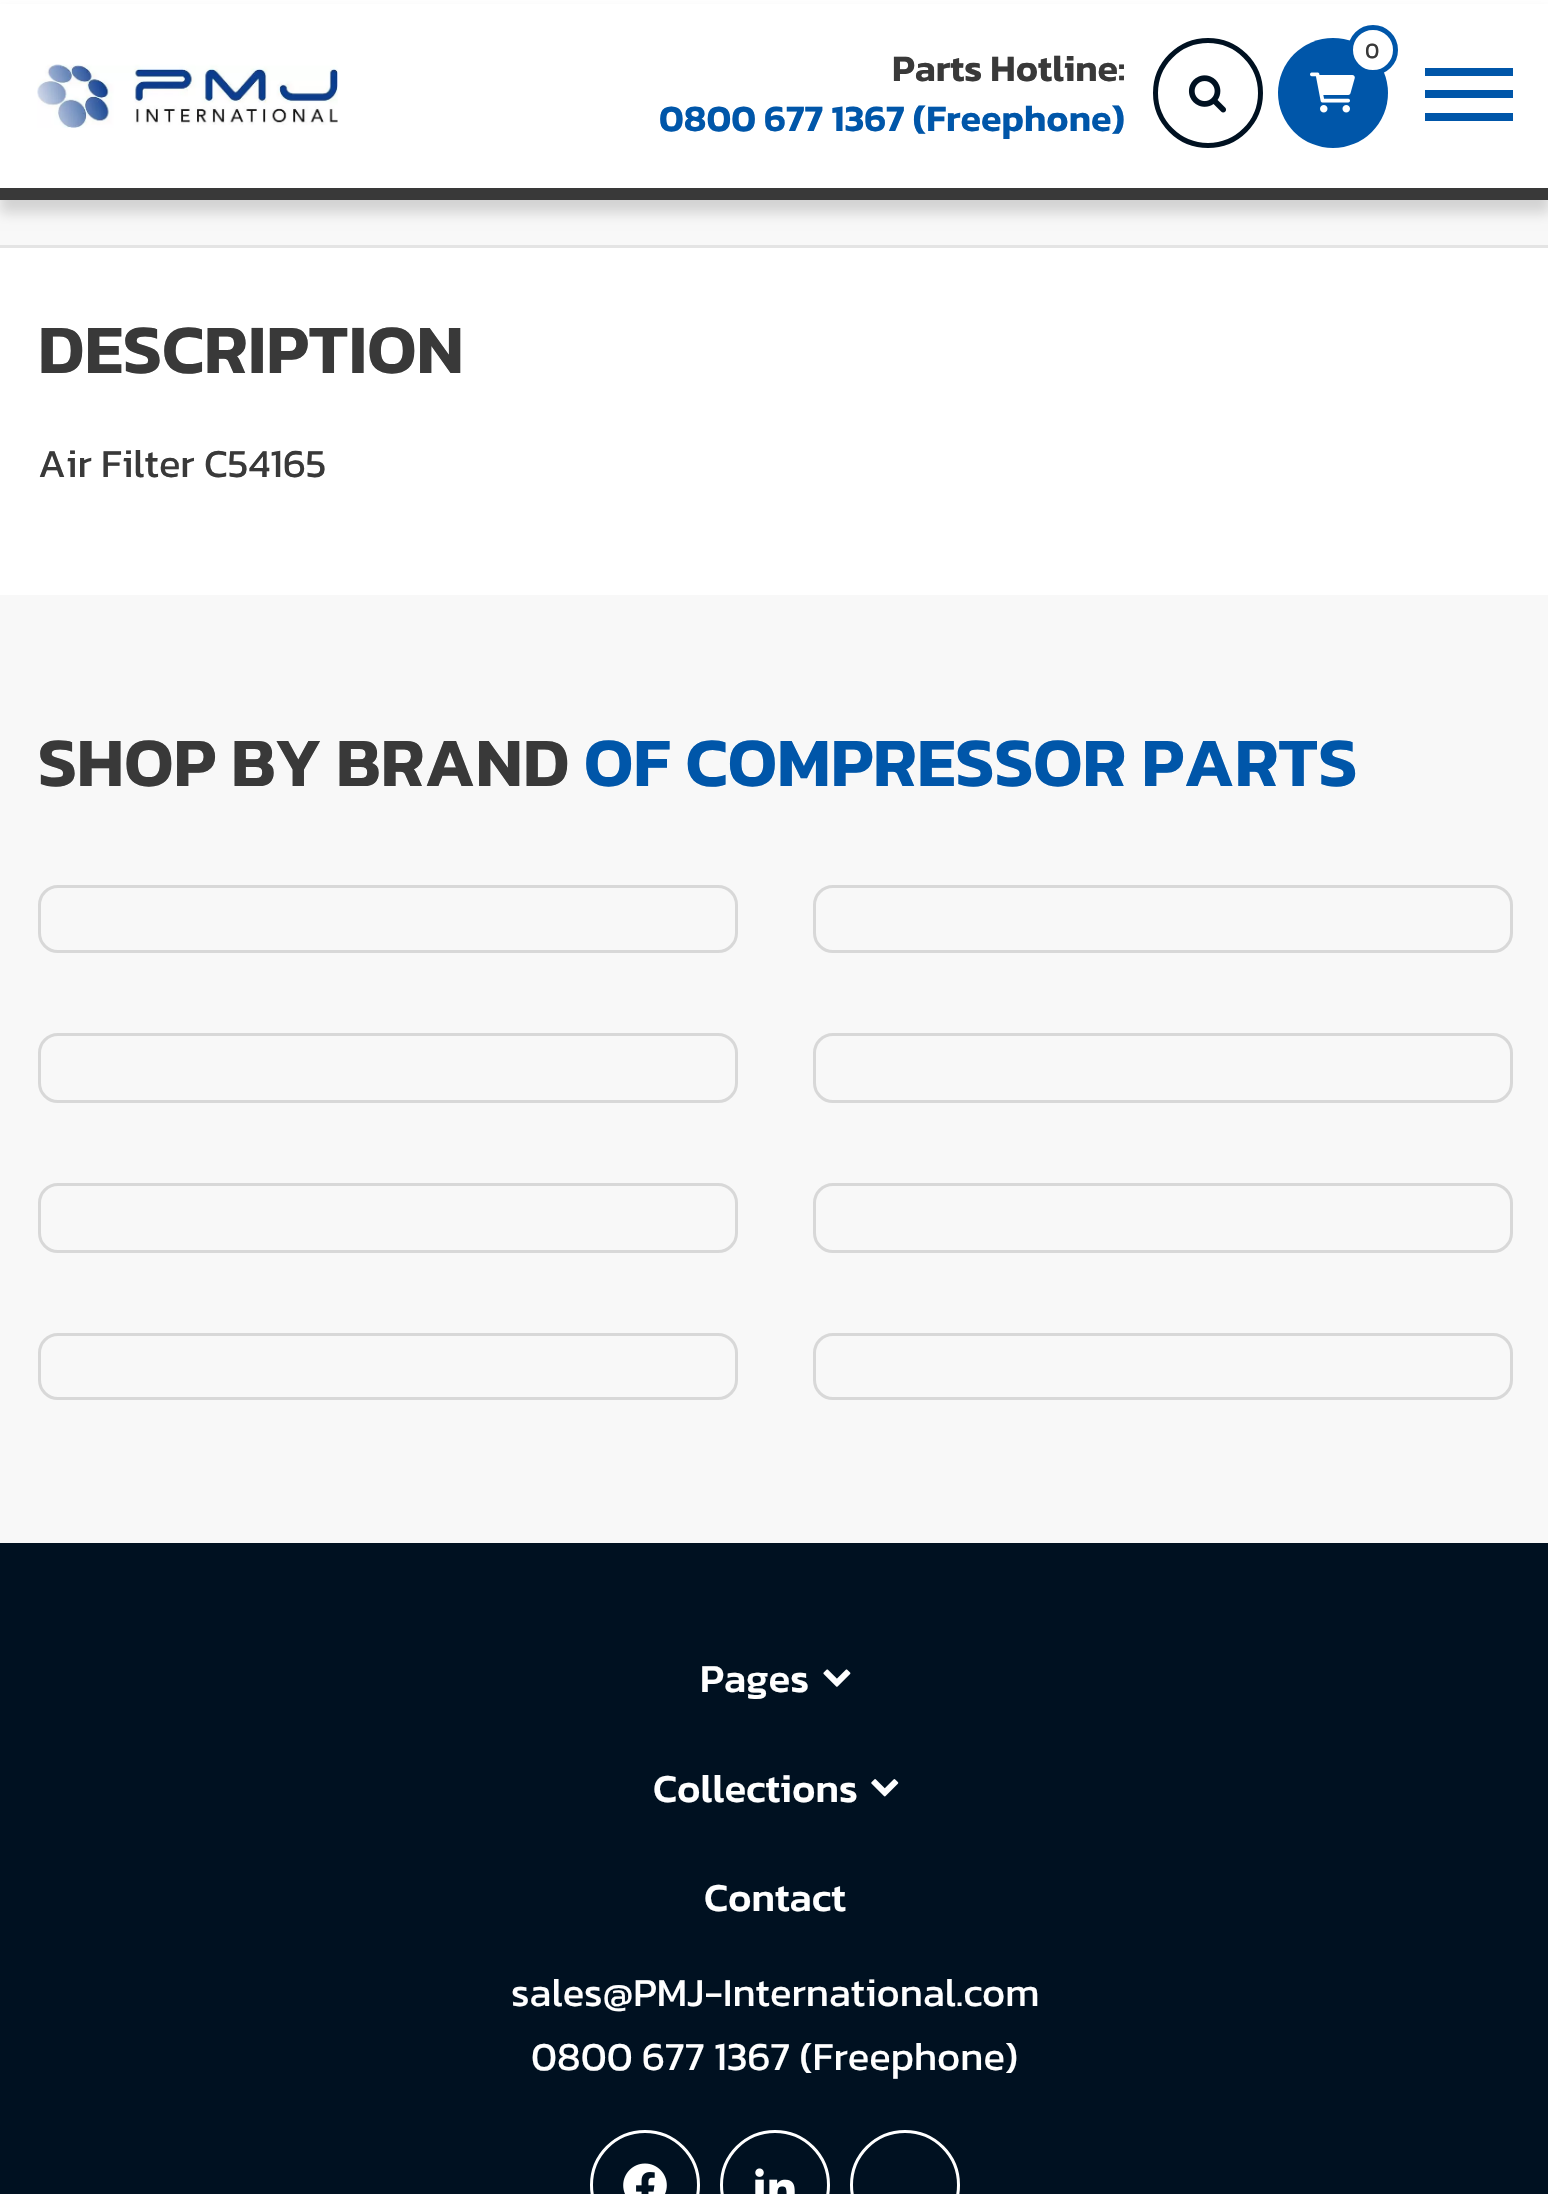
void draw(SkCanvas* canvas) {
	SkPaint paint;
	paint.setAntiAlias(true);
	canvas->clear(0xffffffff);
	paint.setColor(0xfff8f8f8);
	canvas->drawRect(SkRect::MakeXYWH(0, 200, 1548, 45), paint);
	paint.setColor(0x26000000);
	paint.setMaskFilter(SkMaskFilter::MakeBlur(kNormal_SkBlurStyle, 6));
	canvas->drawRect(SkRect::MakeXYWH(0, 13, 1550, 200), paint);
	paint.setMaskFilter(nullptr);
	paint.setColor(0xff393939);
	canvas->drawRect(SkRect::MakeXYWH(0, 188, 1548, 12), paint);
	paint.setColor(0xffffffff);
	canvas->drawRect(SkRect::MakeXYWH(0, 4, 1548, 184), paint);
	canvas->drawImageRect(SkImages::DeferredFromEncodedData(SkData::MakeFromFileName("img1.png")), SkRect::MakeXYWH(37, 64, 301, 64), SkSamplingOptions());
	paint.setStroke(true);
	paint.setStrokeWidth(5);
	paint.setColor(0xff001121);
	canvas->drawCircle(1208, 93, 52.5, paint);
	canvas->drawImageRect(SkImages::DeferredFromEncodedData(SkData::MakeFromFileName("img2.png")), SkRect::MakeXYWH(1188, 75, 38, 38), SkSamplingOptions());
	paint.setStroke(false);
	paint.setColor(0xff0056a9);
	canvas->drawCircle(1333, 93, 55, paint);
	canvas->drawImageRect(SkImages::DeferredFromEncodedData(SkData::MakeFromFileName("img3.png")), SkRect::MakeXYWH(1310, 72, 45, 41), SkSamplingOptions());
	paint.setColor(0xffffffff);
	canvas->drawCircle(1373, 50, 22.5, paint);
	paint.setStroke(true);
	paint.setColor(0xff0056a9);
	canvas->drawCircle(1373, 50, 22.5, paint);
	SkFont f1(fontMgr->matchFamilyStyle("Kanit", SkFontStyle::Normal()), 22);
	f1.setSubpixel(true);
	paint.setStroke(false);
	paint.setColor(0xff393939);
	canvas->drawString("0", 1365, 58, f1, paint);
	SkFont f2(fontMgr->matchFamilyStyle("Kanit", SkFontStyle(600, SkFontStyle::kNormal_Width, SkFontStyle::kUpright_Slant)), 37.5);
	f2.setSubpixel(true);
	canvas->drawString("Parts Hotline:", 892, 81, f2, paint);
	paint.setColor(0xff0056a9);
	canvas->drawString("0800 677 1367 (Freephone)", 659, 131, f2, paint);
	canvas->drawRect(SkRect::MakeXYWH(1425, 68, 88, 8), paint);
	canvas->drawRect(SkRect::MakeXYWH(1425, 90, 88, 8), paint);
	canvas->drawRect(SkRect::MakeXYWH(1425, 113, 88, 8), paint);
	paint.setColor(0xffe4e4e4);
	canvas->drawRect(SkRect::MakeXYWH(0, 245, 1548, 3), paint);
	SkFont f3(fontMgr->matchFamilyStyle("Kanit", SkFontStyle(600, SkFontStyle::kNormal_Width, SkFontStyle::kUpright_Slant)), 70);
	f3.setSubpixel(true);
	paint.setColor(0xff393939);
	canvas->drawString("DESCRIPTION", 38, 373, f3, paint);
	SkFont f4(fontMgr->matchFamilyStyle("Kanit", SkFontStyle::Normal()), 40);
	f4.setSubpixel(true);
	canvas->drawString("Air Filter C54165", 38, 477, f4, paint);
	paint.setColor(0xfff8f8f8);
	canvas->drawRect(SkRect::MakeXYWH(0, 595, 1548, 948), paint);
	paint.setColor(0xff393939);
	canvas->drawString("SHOP BY BRAND", 38, 786, f3, paint);
	paint.setColor(0xff0056a9);
	canvas->drawString("OF COMPRESSOR PARTS", 584, 786, f3, paint);
	paint.setStroke(true);
	paint.setStrokeWidth(3);
	paint.setColor(0xffd8d8d8);
	canvas->drawRoundRect(SkRect::MakeXYWH(39.5, 886.5, 697, 65), 18.5, 18.5, paint);
	canvas->drawRoundRect(SkRect::MakeXYWH(814.5, 886.5, 697, 65), 18.5, 18.5, paint);
	canvas->drawRoundRect(SkRect::MakeXYWH(39.5, 1034.5, 697, 67), 18.5, 18.5, paint);
	canvas->drawRoundRect(SkRect::MakeXYWH(814.5, 1034.5, 697, 67), 18.5, 18.5, paint);
	canvas->drawRoundRect(SkRect::MakeXYWH(39.5, 1184.5, 697, 67), 18.5, 18.5, paint);
	canvas->drawRoundRect(SkRect::MakeXYWH(814.5, 1184.5, 697, 67), 18.5, 18.5, paint);
	canvas->drawRoundRect(SkRect::MakeXYWH(39.5, 1334.5, 697, 64), 18.5, 18.5, paint);
	canvas->drawRoundRect(SkRect::MakeXYWH(814.5, 1334.5, 697, 64), 18.5, 18.5, paint);
	paint.setStroke(false);
	paint.setColor(0xff001121);
	canvas->drawRect(SkRect::MakeXYWH(0, 1543, 1548, 651), paint);
	SkFont f5(fontMgr->matchFamilyStyle("Kanit", SkFontStyle(500, SkFontStyle::kNormal_Width, SkFontStyle::kUpright_Slant)), 40);
	f5.setSubpixel(true);
	paint.setColor(0xffffffff);
	canvas->drawString("Pages", 700, 1692, f5, paint);
	canvas->drawImageRect(SkImages::DeferredFromEncodedData(SkData::MakeFromFileName("img4.png")), SkRect::MakeXYWH(823, 1669, 28, 18), SkSamplingOptions());
	canvas->drawString("Collections", 653, 1802, f5, paint);
	canvas->drawImageRect(SkImages::DeferredFromEncodedData(SkData::MakeFromFileName("img5.png")), SkRect::MakeXYWH(871, 1779, 28, 18), SkSamplingOptions());
	canvas->drawString("Contact", 704, 1911, f5, paint);
	canvas->drawString("sales@PMJ-International.com", 511, 2006, f4, paint);
	canvas->drawString("0800 677 1367 (Freephone)", 531, 2070, f4, paint);
	paint.setStroke(true);
	canvas->drawCircle(645, 2185, 53.5, paint);
	canvas->drawImageRect(SkImages::DeferredFromEncodedData(SkData::MakeFromFileName("img6.png")), SkRect::MakeXYWH(623, 2163, 44, 31), SkSamplingOptions());
	canvas->drawCircle(775, 2185, 53.5, paint);
	canvas->drawImageRect(SkImages::DeferredFromEncodedData(SkData::MakeFromFileName("img7.png")), SkRect::MakeXYWH(755, 2168, 40, 26), SkSamplingOptions());
	canvas->drawCircle(905, 2185, 53.5, paint);
}
